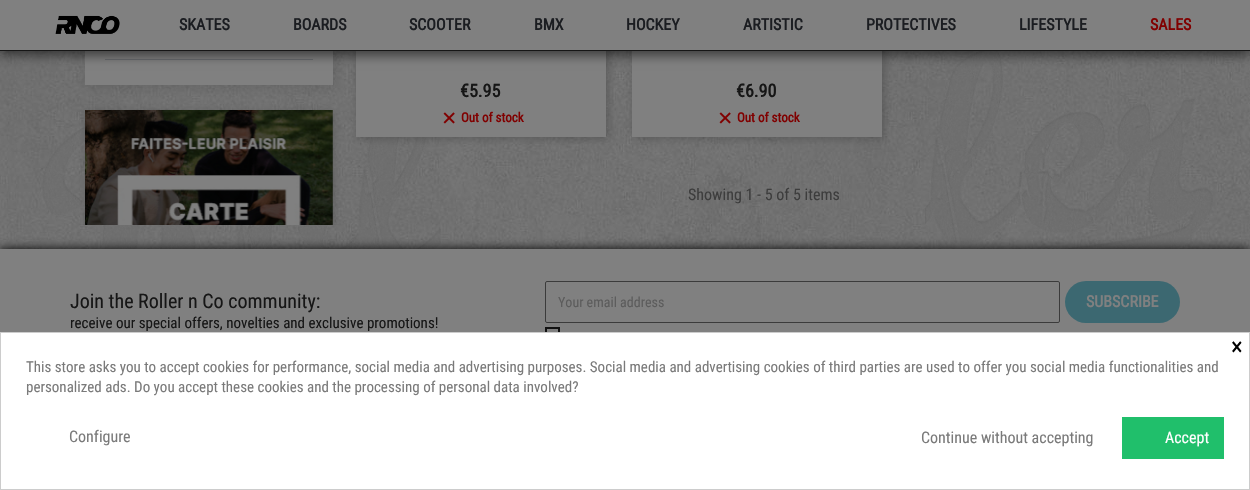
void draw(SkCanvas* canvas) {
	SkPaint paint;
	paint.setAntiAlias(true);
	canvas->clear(0xffffffff);
	canvas->drawImageRect(SkImages::DeferredFromEncodedData(SkData::MakeFromFileName("img1.png")), SkRect::MakeXYWH(0, 51, 1250, 198), SkSamplingOptions());
	canvas->drawImageRect(SkImages::DeferredFromEncodedData(SkData::MakeFromFileName("img3.png")), SkRect::MakeXYWH(42, 51, 1171, 198), SkSamplingOptions());
	paint.setColor(0x1a000000);
	paint.setMaskFilter(SkMaskFilter::MakeBlur(kNormal_SkBlurStyle, 5.5));
	canvas->drawRect(SkRect::MakeXYWH(87, -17, 248, 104), paint);
	paint.setMaskFilter(nullptr);
	paint.setColor(0xff808080);
	canvas->drawRect(SkRect::MakeXYWH(85, 51, 248, 34), paint);
	paint.setColor(0xff686b6e);
	canvas->drawRect(SkRect::MakeXYWH(105, 59, 208, 1), paint);
	paint.setColor(0x33000000);
	paint.setMaskFilter(SkMaskFilter::MakeBlur(kNormal_SkBlurStyle, 4));
	canvas->drawRect(SkRect::MakeXYWH(358, -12, 250, 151), paint);
	paint.setMaskFilter(nullptr);
	paint.setColor(0xff808080);
	canvas->drawRect(SkRect::MakeXYWH(356, 51, 250, 86), paint);
	paint.setColor(0x33000000);
	paint.setMaskFilter(SkMaskFilter::MakeBlur(kNormal_SkBlurStyle, 4));
	canvas->drawRect(SkRect::MakeXYWH(634, -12, 250, 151), paint);
	paint.setMaskFilter(nullptr);
	paint.setColor(0xff808080);
	canvas->drawRect(SkRect::MakeXYWH(632, 51, 250, 86), paint);
	paint.setColor(0x80000000);
	paint.setMaskFilter(SkMaskFilter::MakeBlur(kNormal_SkBlurStyle, 5));
	canvas->drawRect(SkRect::MakeXYWH(0, 5, 1250, 51), paint);
	paint.setMaskFilter(nullptr);
	paint.setColor(0xff808080);
	canvas->drawRect(SkRect::MakeXYWH(0, 0, 1250, 50), paint);
	paint.setColor(0xff161616);
	canvas->drawRect(SkRect::MakeXYWH(0, 50, 1250, 1), paint);
	canvas->drawImageRect(SkImages::DeferredFromEncodedData(SkData::MakeFromFileName("img2.png")), SkRect::MakeXYWH(55, 15, 65, 19), SkSamplingOptions());
	SkFont f1(fontMgr->matchFamilyStyle("Roboto Condensed", SkFontStyle::Bold()), 16);
	f1.setSubpixel(true);
	paint.setColor(0xff1b1d21);
	canvas->drawString("SKATES", 179, 30, f1, paint);
	canvas->drawString("BOARDS", 293, 30, f1, paint);
	canvas->drawString("SCOOTER", 409, 30, f1, paint);
	canvas->drawString("BMX", 534, 30, f1, paint);
	canvas->drawString("HOCKEY", 626, 30, f1, paint);
	canvas->drawString("ARTISTIC", 743, 30, f1, paint);
	canvas->drawString("PROTECTIVES", 866, 30, f1, paint);
	canvas->drawString("LIFESTYLE", 1019, 30, f1, paint);
	paint.setColor(0xff800000);
	canvas->drawString("SALES", 1150, 30, f1, paint);
	paint.setColor(0xff000000);
	paint.setMaskFilter(SkMaskFilter::MakeBlur(kNormal_SkBlurStyle, 5));
	canvas->drawRect(SkRect::MakeXYWH(0, 249, 1250, 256), paint);
	paint.setMaskFilter(nullptr);
	paint.setColor(0xff808080);
	canvas->drawRect(SkRect::MakeXYWH(0, 249, 1250, 83), paint);
	canvas->save();
	canvas->clipRect(SkRect::MakeXYWH(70, 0, 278, 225));
	paint.setColor(0x26000000);
	paint.setMaskFilter(SkMaskFilter::MakeBlur(kNormal_SkBlurStyle, 3.5));
	canvas->drawRect(SkRect::MakeXYWH(86, 111, 248, 228), paint);
	paint.setMaskFilter(nullptr);
	canvas->restore();
	canvas->drawImageRect(SkImages::DeferredFromEncodedData(SkData::MakeFromFileName("img4.png")), SkRect::MakeXYWH(85, 110, 248, 115), SkSamplingOptions());
	SkFont f2(fontMgr->matchFamilyStyle("Roboto Condensed", SkFontStyle::Bold()), 18);
	f2.setSubpixel(true);
	paint.setColor(0xff161616);
	canvas->drawString("€5.95", 460, 97, f2, paint);
	canvas->drawImageRect(SkImages::DeferredFromEncodedData(SkData::MakeFromFileName("img5.png")), SkRect::MakeXYWH(443, 112, 12, 12), SkSamplingOptions());
	SkFont f3(fontMgr->matchFamilyStyle("Roboto Condensed", SkFontStyle::Bold()), 13);
	f3.setSubpixel(true);
	paint.setColor(0xff800000);
	canvas->drawString("Out of stock", 461, 122, f3, paint);
	paint.setColor(0xff161616);
	canvas->drawString("€6.90", 736, 97, f2, paint);
	canvas->drawImageRect(SkImages::DeferredFromEncodedData(SkData::MakeFromFileName("img5.png")), SkRect::MakeXYWH(719, 112, 12, 12), SkSamplingOptions());
	paint.setColor(0xff800000);
	canvas->drawString("Out of stock", 737, 122, f3, paint);
	SkFont f4(fontMgr->matchFamilyStyle("Roboto Condensed", SkFontStyle::Normal()), 16);
	f4.setSubpixel(true);
	paint.setColor(0xff3d3d3d);
	canvas->drawString("Showing 1 - 5 of 5 items", 688, 200, f4, paint);
	SkFont f5(fontMgr->matchFamilyStyle("Roboto Condensed", SkFontStyle::Normal()), 20);
	f5.setSubpixel(true);
	paint.setColor(0xff161616);
	canvas->drawString("Join the Roller n Co community:", 70, 308, f5, paint);
	SkFont f6(fontMgr->matchFamilyStyle("Roboto Condensed", SkFontStyle::Normal()), 15);
	f6.setSubpixel(true);
	canvas->drawString("receive our special offers, novelties and exclusive promotions!", 70, 328, f6, paint);
	paint.setStroke(true);
	paint.setStrokeWidth(1);
	paint.setColor(0xff3b3b3b);
	canvas->drawRoundRect(SkRect::MakeXYWH(545.5, 281.5, 514, 41), 1.5, 1.5, paint);
	SkFont f7(fontMgr->matchFamilyStyle("Roboto Condensed", SkFontStyle::Normal()), 14);
	f7.setSubpixel(true);
	paint.setStroke(false);
	paint.setColor(0xff5c5c5c);
	canvas->drawString("Your email address", 558, 307, f7, paint);
	paint.setColor(0xff3c6871);
	canvas->drawRoundRect(SkRect::MakeXYWH(1065, 281, 115, 42), 21, 21, paint);
	paint.setColor(0xff808080);
	canvas->drawString("SUBSCRIBE", 1086, 307, f1, paint);
	paint.setStroke(true);
	paint.setStrokeWidth(2);
	paint.setColor(0xff121212);
	canvas->drawRect(SkRect::MakeXYWH(546, 328, 13, 13), paint);
	paint.setStroke(false);
	paint.setColor(0xffffffff);
	canvas->drawRect(SkRect::MakeXYWH(0.5, 332.5, 1249, 157), paint);
	paint.setStroke(true);
	paint.setStrokeWidth(1);
	paint.setColor(0xffcccccc);
	canvas->drawRect(SkRect::MakeXYWH(0.5, 332.5, 1249, 157), paint);
	SkFont f8(fontMgr->matchFamilyStyle("Roboto Condensed", SkFontStyle::Normal()), 25);
	f8.setSubpixel(true);
	paint.setStroke(false);
	paint.setColor(0xff000000);
	canvas->drawString("×", 1231, 355, f8, paint);
	paint.setColor(0xff7a7a7a);
	canvas->drawString("This store asks you to accept cookies for performance, social media and advertising purposes. Social media and advertising cookies of third parties are used to offer you social media functionalities and", 26, 372, f6, paint);
	canvas->drawString("personalized ads. Do you accept these cookies and the processing of personal data involved?", 26, 392, f6, paint);
	canvas->drawString("Configure", 69, 442, f4, paint);
	canvas->drawString("Continue without accepting", 921, 443, f4, paint);
	paint.setColor(0xff20bf6b);
	canvas->drawRect(SkRect::MakeXYWH(1122, 417, 102, 42), paint);
	paint.setColor(0xffffffff);
	canvas->drawString("Accept", 1165, 443, f4, paint);
}
